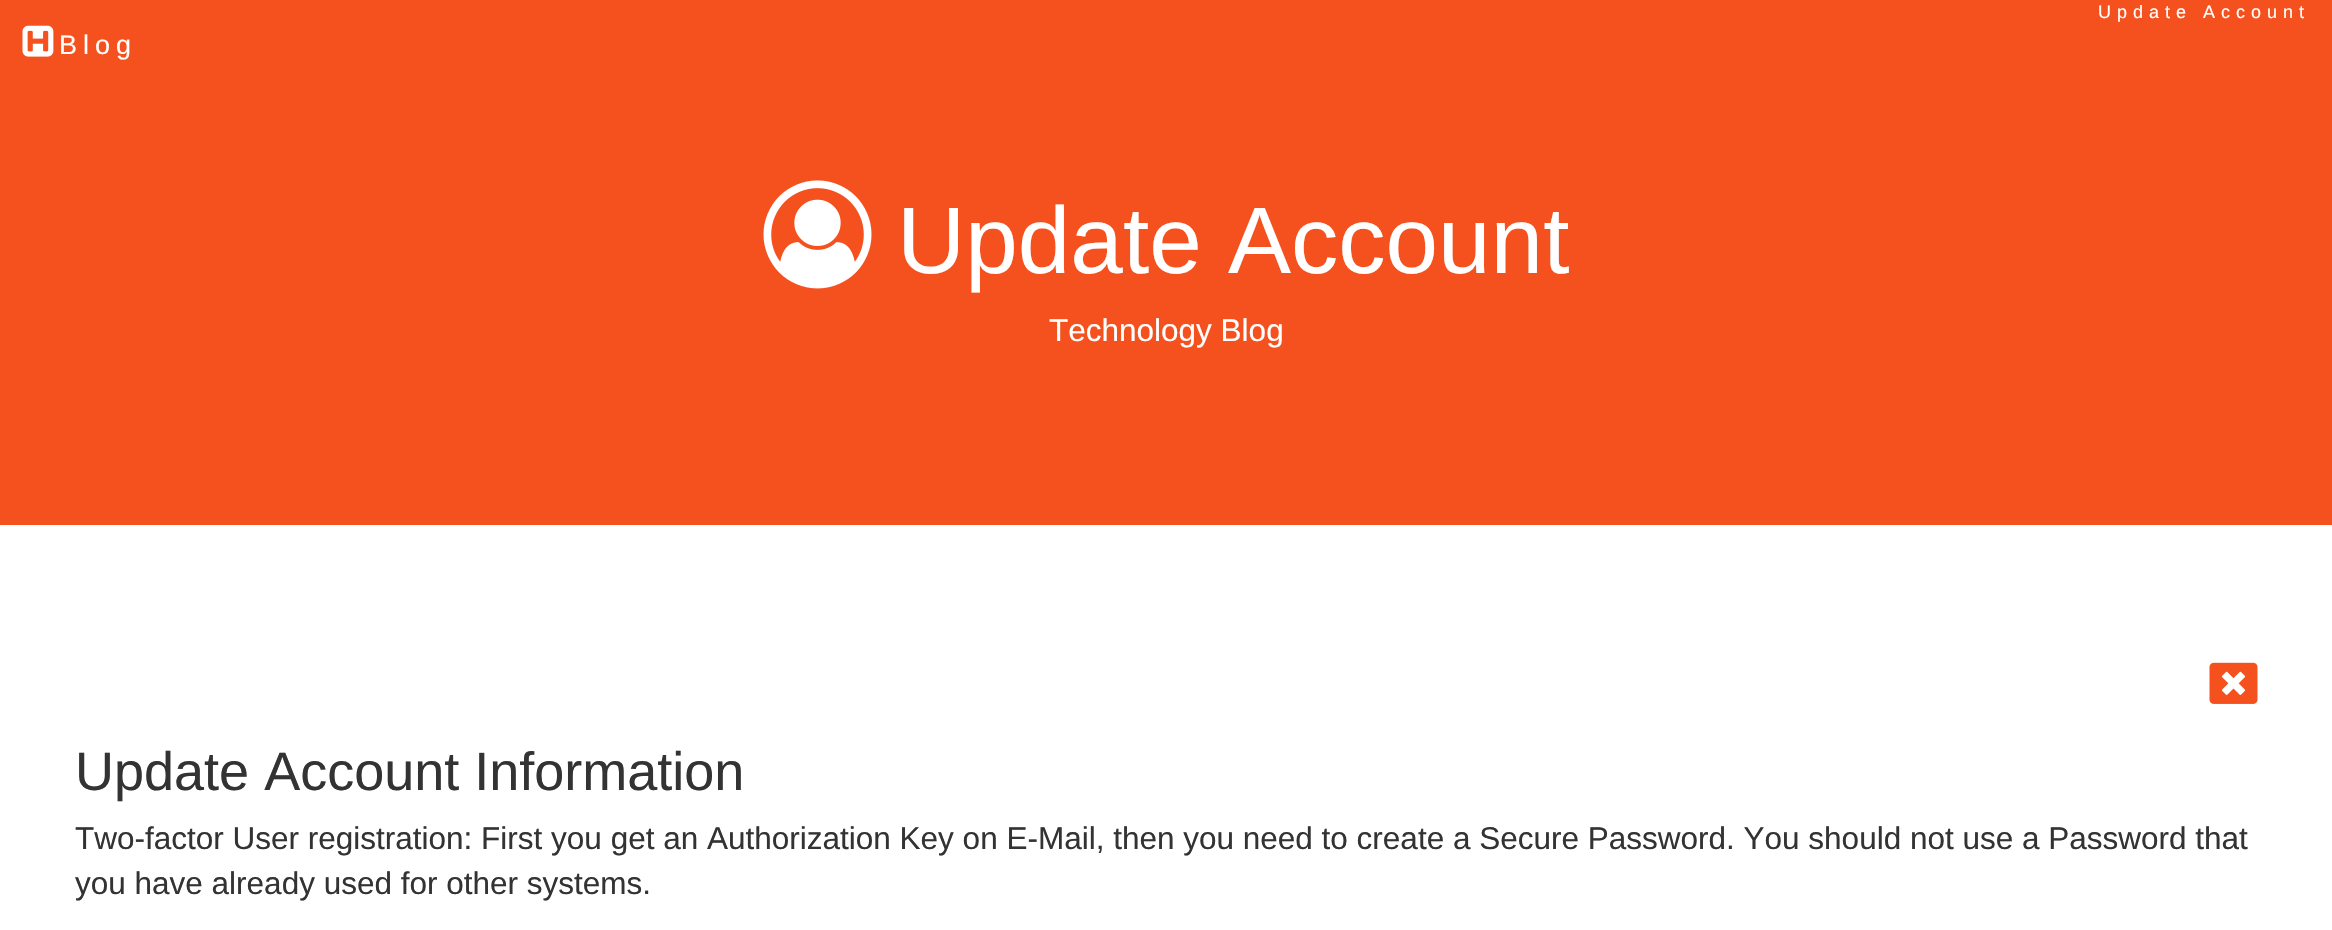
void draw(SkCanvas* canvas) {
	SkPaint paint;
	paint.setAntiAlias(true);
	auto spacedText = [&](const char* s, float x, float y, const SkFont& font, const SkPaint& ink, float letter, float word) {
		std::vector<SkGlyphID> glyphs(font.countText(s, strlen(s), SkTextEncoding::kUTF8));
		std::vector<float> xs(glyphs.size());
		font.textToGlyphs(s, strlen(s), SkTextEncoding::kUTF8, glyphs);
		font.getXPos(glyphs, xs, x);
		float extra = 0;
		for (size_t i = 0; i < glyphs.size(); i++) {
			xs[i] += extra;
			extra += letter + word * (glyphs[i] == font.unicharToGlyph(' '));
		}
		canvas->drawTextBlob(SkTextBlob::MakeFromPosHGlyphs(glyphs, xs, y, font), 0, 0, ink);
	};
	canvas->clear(0xffffffff);
	paint.setColor(0xfff4511e);
	canvas->drawRect(SkRect::MakeXYWH(0, 0, 2332, 525), paint);
	SkFont f1(fontMgr->matchFamilyStyle("Liberation Sans", SkFontStyle::Normal()), 18);
	f1.setSubpixel(true);
	paint.setColor(0xffffffff);
	spacedText("Update Account", 2098, 18, f1, paint, 6, 0);
	canvas->drawImageRect(SkImages::DeferredFromEncodedData(SkData::MakeFromFileName("img1.png")), SkRect::MakeXYWH(22, 25, 32, 32), SkSamplingOptions());
	SkFont f2(fontMgr->matchFamilyStyle("Liberation Sans", SkFontStyle::Normal()), 27);
	f2.setSubpixel(true);
	spacedText("Blog", 59, 54, f2, paint, 6, 0);
	canvas->drawImageRect(SkImages::DeferredFromEncodedData(SkData::MakeFromFileName("img2.png")), SkRect::MakeXYWH(763, 180, 109, 109), SkSamplingOptions());
	SkFont f3(fontMgr->matchFamilyStyle("Liberation Sans", SkFontStyle::Normal()), 94.5);
	f3.setSubpixel(true);
	canvas->drawString("Update Account", 897, 273, f3, paint);
	SkFont f4(fontMgr->matchFamilyStyle("Liberation Sans", SkFontStyle::Normal()), 31.5);
	f4.setSubpixel(true);
	canvas->drawString("Technology Blog", 1049, 341, f4, paint);
	canvas->drawImageRect(SkImages::DeferredFromEncodedData(SkData::MakeFromFileName("img3.png")), SkRect::MakeXYWH(2209, 662, 49, 42), SkSamplingOptions());
	SkFont f5(fontMgr->matchFamilyStyle("Liberation Sans", SkFontStyle::Normal()), 54);
	f5.setSubpixel(true);
	paint.setColor(0xff333333);
	canvas->drawString("Update Account Information", 75, 790, f5, paint);
	canvas->drawString("Two-factor User registration: First you get an Authorization Key on E-Mail, then you need to create a Secure Password. You should not use a Password that", 75, 849, f4, paint);
	canvas->drawString("you have already used for other systems.", 75, 894, f4, paint);
}
